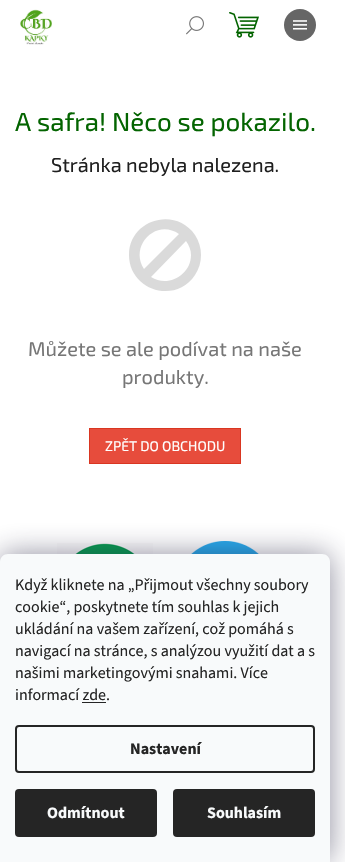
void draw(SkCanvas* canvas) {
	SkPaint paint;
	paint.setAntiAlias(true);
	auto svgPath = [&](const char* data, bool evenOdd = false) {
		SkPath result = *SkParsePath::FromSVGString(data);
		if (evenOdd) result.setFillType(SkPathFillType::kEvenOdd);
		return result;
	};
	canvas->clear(0xffffffff);
	canvas->drawImageRect(SkImages::DeferredFromEncodedData(SkData::MakeFromFileName("img1.png")), SkRect::MakeXYWH(20, 9, 32, 36), SkSamplingOptions());
	canvas->drawImageRect(SkImages::DeferredFromEncodedData(SkData::MakeFromFileName("img2.png")), SkRect::MakeXYWH(229, 12, 30, 26), SkSamplingOptions());
	canvas->drawImageRect(SkImages::DeferredFromEncodedData(SkData::MakeFromFileName("img3.png")), SkRect::MakeXYWH(186, 16, 18, 19), SkSamplingOptions());
	paint.setColor(0xff666666);
	canvas->drawCircle(300, 25, 16, paint);
	canvas->drawImageRect(SkImages::DeferredFromEncodedData(SkData::MakeFromFileName("img4.png")), SkRect::MakeXYWH(293, 20, 14, 10), SkSamplingOptions());
	SkFont f1(fontMgr->matchFamilyStyle("Exo 2", SkFontStyle::Normal()), 26);
	f1.setSubpixel(true);
	paint.setColor(0xff036400);
	canvas->drawString("A safra! Něco se pokazilo.", 15, 131, f1, paint);
	SkFont f2(fontMgr->matchFamilyStyle("Exo 2", SkFontStyle::Normal()), 20);
	f2.setSubpixel(true);
	paint.setColor(0xff1f1f1f);
	canvas->drawString("Stránka nebyla nalezena.", 51, 172, f2, paint);
	paint.setColor(0xffdadada);
	canvas->drawPath(svgPath("M191 255C191 250 189 245 186 241L151 277C168 288 191 275 191 255ZM144 269L179 234C156 218 129 246 144 269ZM201 255C201 262 199 269 195 275C175 305 129 290 129 255C129 220 175 206 195 235C199 241 201 248 201 255Z"), paint);
	paint.setColor(0xff767676);
	canvas->drawString("Můžete se ale podívat na naše", 28, 356, f2, paint);
	canvas->drawString("produkty.", 122, 384, f2, paint);
	paint.setColor(0xffe74c3c);
	canvas->drawRect(SkRect::MakeXYWH(89.5, 428.5, 151, 35), paint);
	paint.setStroke(true);
	paint.setStrokeWidth(1);
	paint.setColor(0xffd93621);
	canvas->drawRect(SkRect::MakeXYWH(89.5, 428.5, 151, 35), paint);
	SkFont f3(fontMgr->matchFamilyStyle("Exo 2", SkFontStyle::Normal()), 14);
	f3.setSubpixel(true);
	paint.setStroke(false);
	paint.setColor(0xffffffff);
	canvas->drawString("ZPĚT DO OBCHODU", 105, 451, f3, paint);
	canvas->drawImageRect(SkImages::DeferredFromEncodedData(SkData::MakeFromFileName("img5.png")), SkRect::MakeXYWH(57, 543, 96, 11), SkSamplingOptions());
	canvas->drawImageRect(SkImages::DeferredFromEncodedData(SkData::MakeFromFileName("img6.png")), SkRect::MakeXYWH(175, 541, 100, 13), SkSamplingOptions());
	paint.setColor(0x801b1939);
	paint.setMaskFilter(SkMaskFilter::MakeBlur(kNormal_SkBlurStyle, 15));
	canvas->drawRoundRect(SkRect::MakeXYWH(0, 554, 330, 308), 8, 8, paint);
	paint.setMaskFilter(nullptr);
	paint.setColor(0xfff8fafb);
	canvas->drawPath(svgPath("M8 554H322C326.5 554 330 557.5 330 562V862H0V562C0 557.5 3.5 554 8 554Z"), paint);
	SkFont f4(fontMgr->matchFamilyStyle("Source Sans 3", SkFontStyle::Normal()), 16);
	f4.setSubpixel(true);
	paint.setColor(0xff252525);
	canvas->drawString("Když kliknete na „Přijmout všechny soubory", 15, 590, f4, paint);
	canvas->drawString("cookie“, poskytnete tím souhlas k jejich", 15, 612, f4, paint);
	canvas->drawString("ukládání na vašem zařízení, což pomáhá s", 15, 634, f4, paint);
	canvas->drawString("navigací na stránce, s analýzou využití dat a s", 15, 656, f4, paint);
	canvas->drawString("našimi marketingovými snahami. Více", 15, 678, f4, paint);
	canvas->drawString("informací zde.", 15, 700, f4, paint);
	canvas->drawRect(SkRect::MakeXYWH(82, 702, 24, 1), paint);
	paint.setStroke(true);
	paint.setStrokeWidth(2);
	canvas->drawRoundRect(SkRect::MakeXYWH(16, 726, 298, 46), 3, 3, paint);
	SkFont f5(fontMgr->matchFamilyStyle("Source Sans 3", SkFontStyle::Bold()), 16);
	f5.setSubpixel(true);
	paint.setStroke(false);
	canvas->drawString("Nastavení", 130, 754, f5, paint);
	canvas->drawRoundRect(SkRect::MakeXYWH(15, 789, 142, 48), 4, 4, paint);
	paint.setColor(0xfff8fafb);
	canvas->drawString("Odmítnout", 47, 818, f5, paint);
	paint.setColor(0xff252525);
	canvas->drawRoundRect(SkRect::MakeXYWH(173, 789, 142, 48), 4, 4, paint);
	paint.setColor(0xfff8fafb);
	canvas->drawString("Souhlasím", 207, 818, f5, paint);
}
